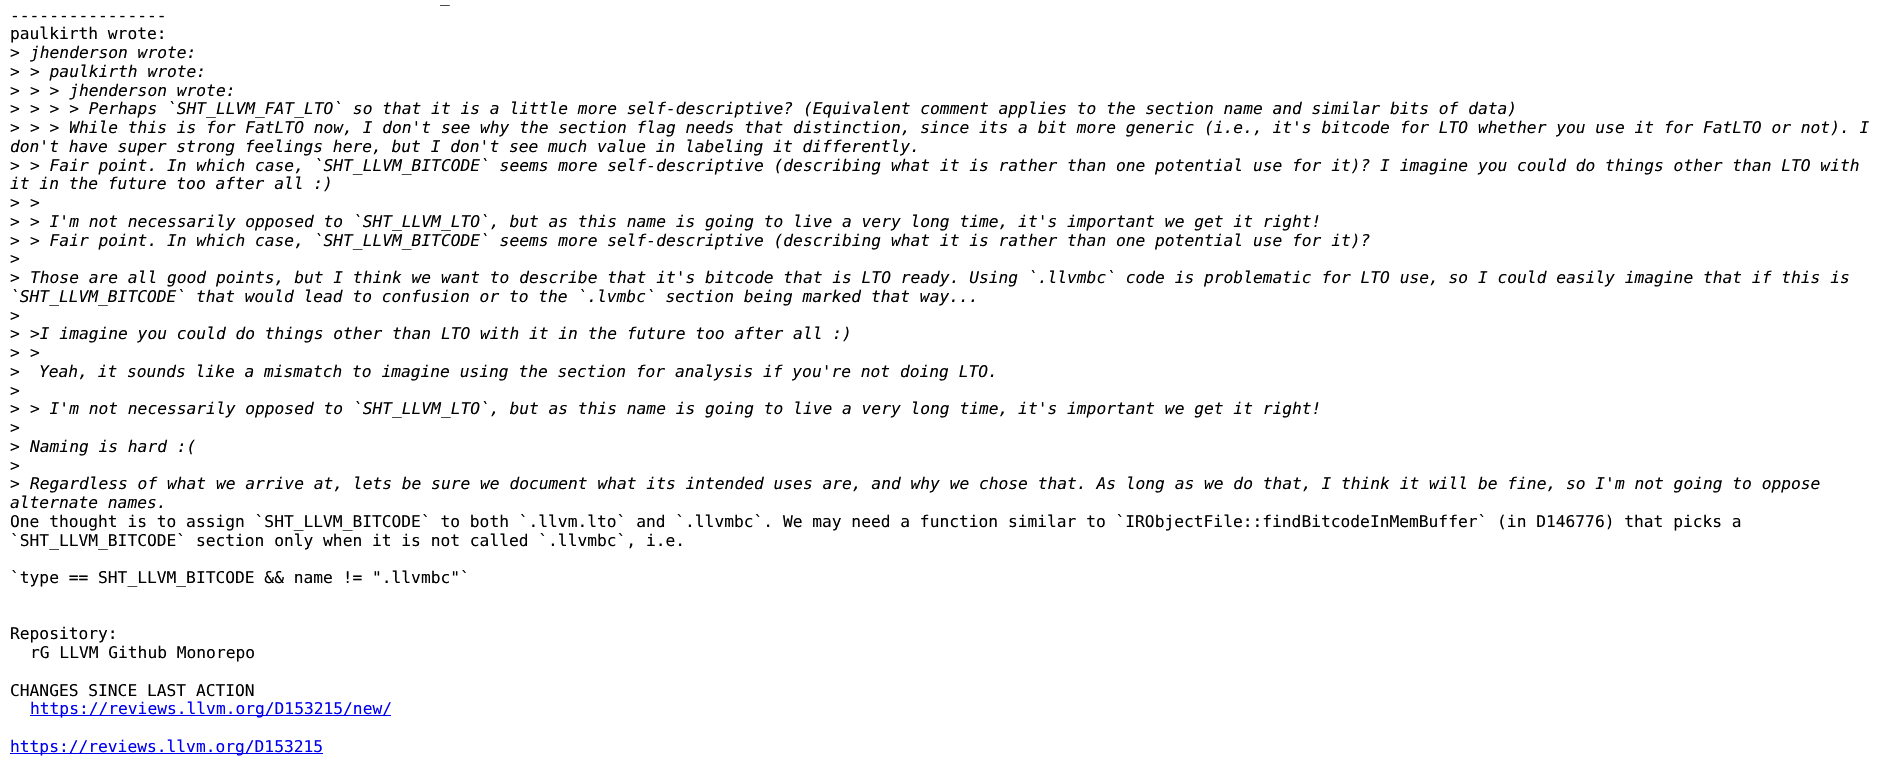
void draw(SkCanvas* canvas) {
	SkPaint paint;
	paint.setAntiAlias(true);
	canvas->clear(0xffffffff);
	SkFont f1(fontMgr->matchFamilyStyle("DejaVu Sans Mono", SkFontStyle::Normal()), 16.25);
	f1.setSubpixel(true);
	paint.setColor(0xff000000);
	canvas->drawString("_", 440, 2, f1, paint);
	canvas->drawString("----------------", 10, 21, f1, paint);
	canvas->drawString("paulkirth wrote:", 10, 39, f1, paint);
	canvas->drawString(">", 10, 58, f1, paint);
	SkFont f2(fontMgr->matchFamilyStyle("DejaVu Sans Mono", SkFontStyle::Italic()), 16.25);
	f2.setSubpixel(true);
	canvas->drawString("jhenderson wrote:", 30, 58, f2, paint);
	canvas->drawString(">", 10, 77, f1, paint);
	canvas->drawString("> paulkirth wrote:", 30, 77, f2, paint);
	canvas->drawString(">", 10, 96, f1, paint);
	canvas->drawString("> > jhenderson wrote:", 30, 96, f2, paint);
	canvas->drawString(">", 10, 114, f1, paint);
	canvas->drawString("> > > Perhaps `SHT_LLVM_FAT_LTO` so that it is a little more self-descriptive? (Equivalent comment applies to the section name and similar bits of data)", 30, 114, f2, paint);
	canvas->drawString(">", 10, 133, f1, paint);
	canvas->drawString("> > While this is for FatLTO now, I don't see why the section flag needs that distinction, since its a bit more generic (i.e., it's bitcode for LTO whether you use it for FatLTO or not). I", 30, 133, f2, paint);
	canvas->drawString("don't have super strong feelings here, but I don't see much value in labeling it differently.", 10, 152, f2, paint);
	canvas->drawString(">", 10, 171, f1, paint);
	canvas->drawString("> Fair point. In which case, `SHT_LLVM_BITCODE` seems more self-descriptive (describing what it is rather than one potential use for it)? I imagine you could do things other than LTO with", 30, 171, f2, paint);
	canvas->drawString("it in the future too after all :)", 10, 189, f2, paint);
	canvas->drawString(">", 10, 208, f1, paint);
	canvas->drawString(">", 30, 208, f2, paint);
	canvas->drawString(">", 10, 227, f1, paint);
	canvas->drawString("> I'm not necessarily opposed to `SHT_LLVM_LTO`, but as this name is going to live a very long time, it's important we get it right!", 30, 227, f2, paint);
	canvas->drawString(">", 10, 246, f1, paint);
	canvas->drawString("> Fair point. In which case, `SHT_LLVM_BITCODE` seems more self-descriptive (describing what it is rather than one potential use for it)?", 30, 246, f2, paint);
	canvas->drawString(">", 10, 264, f1, paint);
	canvas->drawString(">", 10, 283, f1, paint);
	canvas->drawString("Those are all good points, but I think we want to describe that it's bitcode that is LTO ready. Using `.llvmbc` code is problematic for LTO use, so I could easily imagine that if this is", 30, 283, f2, paint);
	canvas->drawString("`SHT_LLVM_BITCODE` that would lead to confusion or to the `.lvmbc` section being marked that way...", 10, 302, f2, paint);
	canvas->drawString(">", 10, 321, f1, paint);
	canvas->drawString(">", 10, 339, f1, paint);
	canvas->drawString(">I imagine you could do things other than LTO with it in the future too after all :)", 30, 339, f2, paint);
	canvas->drawString(">", 10, 358, f1, paint);
	canvas->drawString(">", 30, 358, f2, paint);
	canvas->drawString(">", 10, 377, f1, paint);
	canvas->drawString("Yeah, it sounds like a mismatch to imagine using the section for analysis if you're not doing LTO.", 39, 377, f2, paint);
	canvas->drawString(">", 10, 396, f1, paint);
	canvas->drawString(">", 10, 414, f1, paint);
	canvas->drawString("> I'm not necessarily opposed to `SHT_LLVM_LTO`, but as this name is going to live a very long time, it's important we get it right!", 30, 414, f2, paint);
	canvas->drawString(">", 10, 433, f1, paint);
	canvas->drawString(">", 10, 452, f1, paint);
	canvas->drawString("Naming is hard :(", 30, 452, f2, paint);
	canvas->drawString(">", 10, 471, f1, paint);
	canvas->drawString(">", 10, 489, f1, paint);
	canvas->drawString("Regardless of what we arrive at, lets be sure we document what its intended uses are, and why we chose that. As long as we do that, I think it will be fine, so I'm not going to oppose", 30, 489, f2, paint);
	canvas->drawString("alternate names.", 10, 508, f2, paint);
	canvas->drawString("One thought is to assign `SHT_LLVM_BITCODE` to both `.llvm.lto` and `.llvmbc`. We may need a function similar to `IRObjectFile::findBitcodeInMemBuffer` (in D146776) that picks a", 10, 527, f1, paint);
	canvas->drawString("`SHT_LLVM_BITCODE` section only when it is not called `.llvmbc`, i.e.", 10, 546, f1, paint);
	canvas->drawString("`type == SHT_LLVM_BITCODE && name != \".llvmbc\"`", 10, 583, f1, paint);
	canvas->drawString("Repository:", 10, 639, f1, paint);
	canvas->drawString("rG LLVM Github Monorepo", 30, 658, f1, paint);
	canvas->drawString("CHANGES SINCE LAST ACTION", 10, 696, f1, paint);
	paint.setColor(0xff0000ee);
	canvas->drawRect(SkRect::MakeXYWH(30, 715, 361, 1), paint);
	canvas->drawString("https://reviews.llvm.org/D153215/new/", 30, 714, f1, paint);
	canvas->drawRect(SkRect::MakeXYWH(10, 753, 313, 1), paint);
	canvas->drawString("https://reviews.llvm.org/D153215", 10, 752, f1, paint);
}
